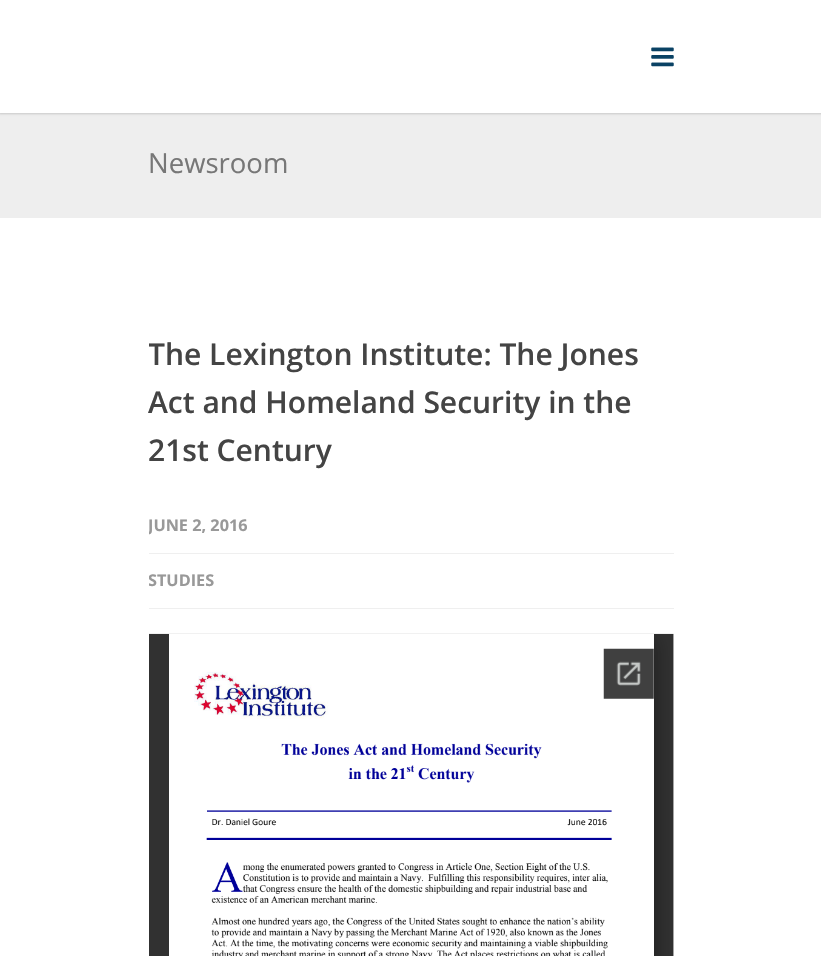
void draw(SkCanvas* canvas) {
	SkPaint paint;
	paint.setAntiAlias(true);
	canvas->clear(0xffffffff);
	paint.setColor(0xffeeeeee);
	canvas->drawRect(SkRect::MakeXYWH(0, 113, 821, 105), paint);
	paint.setColor(0x29000000);
	paint.setMaskFilter(SkMaskFilter::MakeBlur(kNormal_SkBlurStyle, 1));
	canvas->drawRect(SkRect::MakeXYWH(-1, -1, 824, 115), paint);
	paint.setMaskFilter(nullptr);
	paint.setColor(0xffffffff);
	canvas->drawRect(SkRect::MakeXYWH(0, 0, 821, 113), paint);
	canvas->drawImageRect(SkImages::DeferredFromEncodedData(SkData::MakeFromFileName("img1.png")), SkRect::MakeXYWH(651, 47, 23, 20), SkSamplingOptions());
	SkFont f1(fontMgr->matchFamilyStyle("Open Sans", SkFontStyle::Normal()), 27.5);
	f1.setSubpixel(true);
	paint.setColor(0xff777777);
	canvas->drawString("Newsroom", 148, 173, f1, paint);
	canvas->save();
	canvas->clipRect(SkRect::MakeXYWH(149, 330, 525, 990));
	SkFont f2(fontMgr->matchFamilyStyle("Open Sans", SkFontStyle(600, SkFontStyle::kNormal_Width, SkFontStyle::kUpright_Slant)), 30);
	f2.setSubpixel(true);
	paint.setColor(0xff444444);
	canvas->drawString("The Lexington Institute: The Jones", 148, 365, f2, paint);
	canvas->restore();
	canvas->drawString("Act and Homeland Security in the", 148, 413, f2, paint);
	canvas->drawString("21st Century", 148, 461, f2, paint);
	paint.setColor(0xffefefef);
	canvas->drawRect(SkRect::MakeXYWH(149, 553, 525, 1), paint);
	canvas->save();
	canvas->clipRect(SkRect::MakeXYWH(149, 330, 525, 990));
	SkFont f3(fontMgr->matchFamilyStyle("Open Sans", SkFontStyle::Bold()), 16.25);
	f3.setSubpixel(true);
	paint.setColor(0xff999999);
	canvas->drawString("JUNE 2, 2016", 148, 531, f3, paint);
	canvas->restore();
	paint.setColor(0xffefefef);
	canvas->drawRect(SkRect::MakeXYWH(149, 608, 525, 1), paint);
	canvas->save();
	canvas->clipRect(SkRect::MakeXYWH(149, 330, 525, 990));
	paint.setColor(0xff999999);
	canvas->drawString("STUDIES", 148, 586, f3, paint);
	canvas->restore();
	canvas->drawImageRect(SkImages::DeferredFromEncodedData(SkData::MakeFromFileName("img2.png")), SkRect::MakeXYWH(149, 633, 525, 323), SkSamplingOptions());
}
